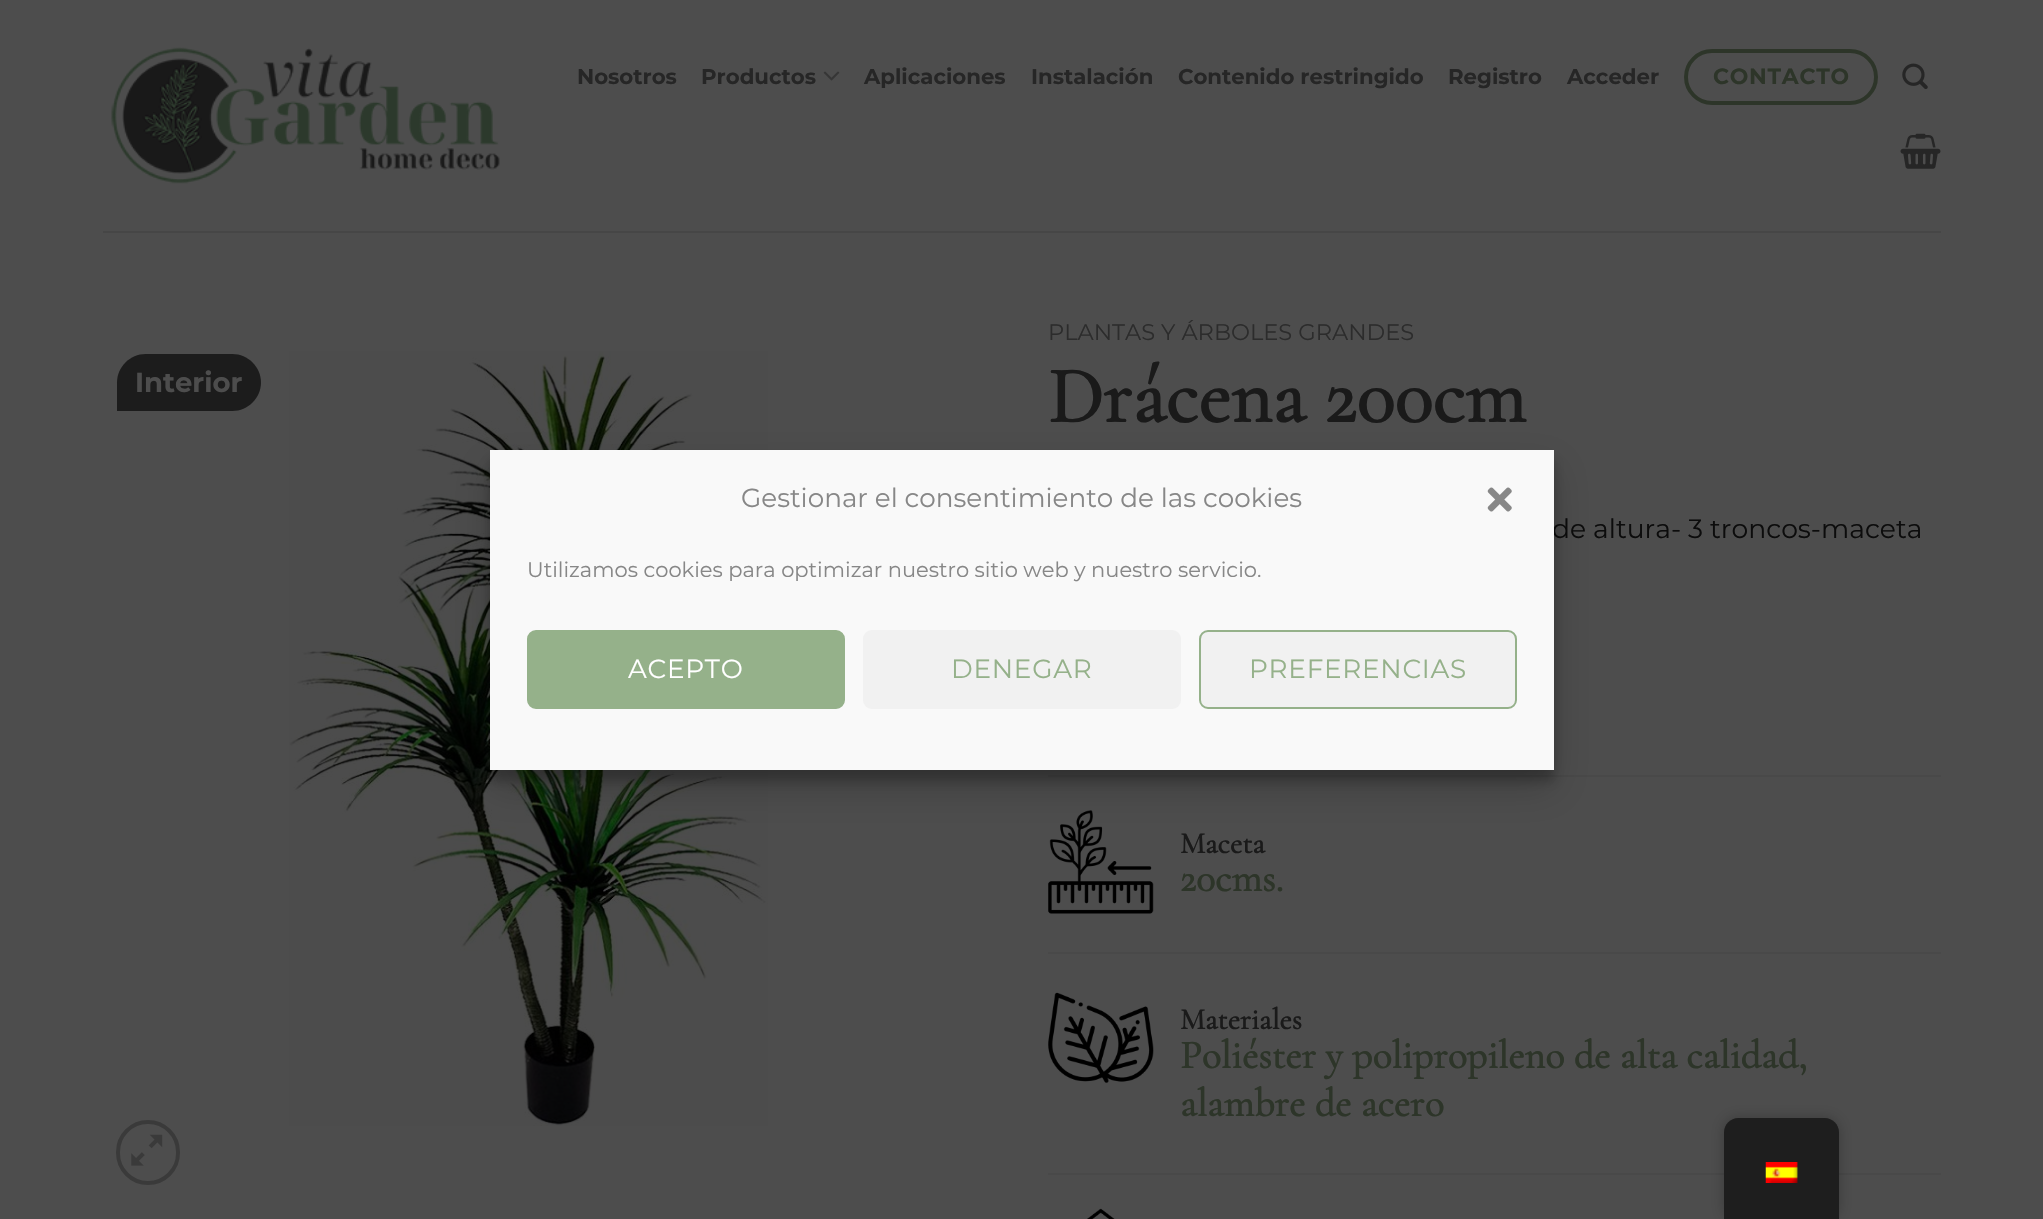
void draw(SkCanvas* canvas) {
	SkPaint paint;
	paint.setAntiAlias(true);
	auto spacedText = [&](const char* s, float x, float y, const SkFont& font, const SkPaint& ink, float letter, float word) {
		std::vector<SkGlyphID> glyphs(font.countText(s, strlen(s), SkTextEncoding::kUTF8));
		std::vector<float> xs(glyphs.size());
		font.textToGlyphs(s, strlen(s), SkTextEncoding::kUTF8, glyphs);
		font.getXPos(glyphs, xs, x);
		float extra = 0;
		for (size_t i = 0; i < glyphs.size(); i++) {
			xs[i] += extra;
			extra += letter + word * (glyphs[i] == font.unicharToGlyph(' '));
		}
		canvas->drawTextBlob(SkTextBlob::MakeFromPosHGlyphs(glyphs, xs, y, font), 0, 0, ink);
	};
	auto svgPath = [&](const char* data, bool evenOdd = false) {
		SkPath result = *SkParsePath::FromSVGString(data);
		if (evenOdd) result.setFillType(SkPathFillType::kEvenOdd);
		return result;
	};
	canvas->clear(0xff4d4d4d);
	canvas->drawImageRect(SkImages::DeferredFromEncodedData(SkData::MakeFromFileName("img1.png")), SkRect::MakeXYWH(111, 47, 389, 137), SkSamplingOptions());
	SkFont f1(fontMgr->matchFamilyStyle("Montserrat", SkFontStyle::Bold()), 21.25);
	f1.setSubpixel(true);
	paint.setColor(0xff262626);
	canvas->drawString("Nosotros", 577, 84, f1, paint);
	canvas->drawString("Productos", 701, 84, f1, paint);
	canvas->drawImageRect(SkImages::DeferredFromEncodedData(SkData::MakeFromFileName("img2.png")), SkRect::MakeXYWH(823, 71, 17, 10), SkSamplingOptions());
	canvas->drawString("Aplicaciones", 864, 84, f1, paint);
	canvas->drawString("Instalación", 1031, 84, f1, paint);
	canvas->drawString("Contenido restringido", 1178, 84, f1, paint);
	canvas->drawString("Registro", 1448, 84, f1, paint);
	canvas->drawString("Acceder", 1567, 84, f1, paint);
	paint.setStroke(true);
	paint.setStrokeWidth(4);
	paint.setColor(0xff2d3529);
	canvas->drawRoundRect(SkRect::MakeXYWH(1686, 51, 190, 52), 26, 26, paint);
	SkFont f2(fontMgr->matchFamilyStyle("Montserrat", SkFontStyle::Bold()), 22);
	f2.setSubpixel(true);
	paint.setStroke(false);
	spacedText("CONTACTO", 1713, 84, f2, paint, 0.75, 0);
	canvas->drawImageRect(SkImages::DeferredFromEncodedData(SkData::MakeFromFileName("img3.png")), SkRect::MakeXYWH(1902, 63, 26, 27), SkSamplingOptions());
	canvas->drawImageRect(SkImages::DeferredFromEncodedData(SkData::MakeFromFileName("img4.png")), SkRect::MakeXYWH(1900, 133, 41, 36), SkSamplingOptions());
	paint.setColor(0xff464646);
	canvas->drawRect(SkRect::MakeXYWH(103, 231, 1838, 2), paint);
	paint.setColor(0xff1c1c1c);
	canvas->drawPath(svgPath("M145.5 354H232.5C248 354 261 367 261 382.5C261 398 248 411 232.5 411H117V382.5C117 367 130 354 145.5 354Z"), paint);
	SkFont f3(fontMgr->matchFamilyStyle("Montserrat", SkFontStyle::Bold()), 27.5);
	f3.setSubpixel(true);
	paint.setColor(0xff4d4d4d);
	canvas->drawString("Interior", 135, 392, f3, paint);
	canvas->drawImageRect(SkImages::DeferredFromEncodedData(SkData::MakeFromFileName("img5.png")), SkRect::MakeXYWH(289, 351, 479, 775), SkSamplingOptions());
	paint.setStroke(true);
	paint.setColor(0xff3a3a3a);
	canvas->drawRoundRect(SkRect::MakeXYWH(118, 1122, 60, 61), 30, 30, paint);
	canvas->drawImageRect(SkImages::DeferredFromEncodedData(SkData::MakeFromFileName("img6.png")), SkRect::MakeXYWH(131, 1134, 32, 32), SkSamplingOptions());
	SkFont f4(fontMgr->matchFamilyStyle("Montserrat", SkFontStyle::Normal()), 22.6);
	f4.setSubpixel(true);
	paint.setStroke(false);
	paint.setColor(0xff2c2c2c);
	canvas->drawString("PLANTAS Y ÁRBOLES GRANDES", 1048, 340, f4, paint);
	SkFont f5(fontMgr->matchFamilyStyle("Cormorant Garamond", SkFontStyle::Bold()), 79.75);
	f5.setSubpixel(true);
	paint.setColor(0xff1a1a1a);
	canvas->drawString("Drácena 200cm", 1048, 422, f5, paint);
	SkFont f6(fontMgr->matchFamilyStyle("Montserrat", SkFontStyle::Normal()), 26.6);
	f6.setSubpixel(true);
	paint.setColor(0xff0c0c0c);
	canvas->drawString("de altura- 3 troncos-maceta", 1552, 538, f6, paint);
	paint.setColor(0xff494949);
	canvas->drawRect(SkRect::MakeXYWH(1048, 775, 893, 2), paint);
	canvas->drawImageRect(SkImages::DeferredFromEncodedData(SkData::MakeFromFileName("img7.png")), SkRect::MakeXYWH(1048, 810, 106, 104), SkSamplingOptions());
	SkFont f7(fontMgr->matchFamilyStyle("Cormorant Garamond", SkFontStyle::Bold()), 30);
	f7.setSubpixel(true);
	paint.setColor(0xff1a1a1a);
	canvas->drawString("Maceta", 1180, 853, f7, paint);
	SkFont f8(fontMgr->matchFamilyStyle("Cormorant Garamond", SkFontStyle::Bold()), 39.9);
	f8.setSubpixel(true);
	paint.setColor(0xff2d3529);
	canvas->drawString("20cms.", 1180, 891, f8, paint);
	paint.setColor(0xff494949);
	canvas->drawRect(SkRect::MakeXYWH(1048, 952, 893, 2), paint);
	canvas->drawImageRect(SkImages::DeferredFromEncodedData(SkData::MakeFromFileName("img8.png")), SkRect::MakeXYWH(1048, 992, 106, 92), SkSamplingOptions());
	paint.setColor(0xff1a1a1a);
	canvas->drawString("Materiales", 1180, 1029, f7, paint);
	paint.setColor(0xff2d3529);
	canvas->drawString("Poliéster y polipropileno de alta calidad,", 1180, 1068, f8, paint);
	canvas->drawString("alambre de acero", 1180, 1116, f8, paint);
	paint.setColor(0xff494949);
	canvas->drawRect(SkRect::MakeXYWH(1048, 1173, 893, 2), paint);
	canvas->drawImageRect(SkImages::DeferredFromEncodedData(SkData::MakeFromFileName("img9.png")), SkRect::MakeXYWH(1087, 1208, 28, 11), SkSamplingOptions());
	paint.setColor(0x3b000000);
	paint.setMaskFilter(SkMaskFilter::MakeBlur(kNormal_SkBlurStyle, 5));
	canvas->drawRect(SkRect::MakeXYWH(490, 460, 1064, 321), paint);
	paint.setMaskFilter(nullptr);
	paint.setColor(0x30000000);
	paint.setMaskFilter(SkMaskFilter::MakeBlur(kNormal_SkBlurStyle, 17.5));
	canvas->drawRect(SkRect::MakeXYWH(490, 467, 1064, 321), paint);
	paint.setMaskFilter(nullptr);
	paint.setColor(0xfff9f9f9);
	canvas->drawRect(SkRect::MakeXYWH(490, 450, 1064, 320), paint);
	SkFont f9(fontMgr->matchFamilyStyle("Montserrat", SkFontStyle::Normal()), 26.25);
	f9.setSubpixel(true);
	paint.setColor(0xff878787);
	canvas->drawString("Gestionar el consentimiento de las cookies", 741, 507, f9, paint);
	canvas->drawImageRect(SkImages::DeferredFromEncodedData(SkData::MakeFromFileName("img10.png")), SkRect::MakeXYWH(1487, 487, 25, 25), SkSamplingOptions());
	SkFont f10(fontMgr->matchFamilyStyle("Montserrat", SkFontStyle::Normal()), 21);
	f10.setSubpixel(true);
	canvas->drawString("Utilizamos cookies para optimizar nuestro sitio web y nuestro servicio.", 527, 577, f10, paint);
	paint.setColor(0xff95b18a);
	canvas->drawRoundRect(SkRect::MakeXYWH(528, 631, 316, 77), 8, 8, paint);
	paint.setStroke(true);
	paint.setStrokeWidth(2);
	canvas->drawRoundRect(SkRect::MakeXYWH(528, 631, 316, 77), 8, 8, paint);
	paint.setStroke(false);
	paint.setColor(0xffffffff);
	spacedText("ACEPTO", 628, 678, f9, paint, 0.75, 0);
	paint.setColor(0xfff1f1f1);
	canvas->drawRoundRect(SkRect::MakeXYWH(863, 630, 318, 79), 9, 9, paint);
	paint.setColor(0xff95b18a);
	spacedText("DENEGAR", 951, 678, f9, paint, 0.75, 0);
	paint.setColor(0xfff1f1f1);
	canvas->drawRoundRect(SkRect::MakeXYWH(1200, 631, 316, 77), 8, 8, paint);
	paint.setStroke(true);
	paint.setColor(0xff95b18a);
	canvas->drawRoundRect(SkRect::MakeXYWH(1200, 631, 316, 77), 8, 8, paint);
	paint.setStroke(false);
	spacedText("PREFERENCIAS", 1249, 678, f9, paint, 0.75, 0);
	paint.setColor(0x40000000);
	paint.setMaskFilter(SkMaskFilter::MakeBlur(kNormal_SkBlurStyle, 7));
	canvas->drawRoundRect(SkRect::MakeXYWH(1724, 1118, 115, 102), 14, 14, paint);
	paint.setMaskFilter(nullptr);
	paint.setColor(0xff1e1e1e);
	canvas->drawPath(svgPath("M1738 1118H1825C1832.5 1118 1839 1124.5 1839 1132V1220H1724V1132C1724 1124.5 1730.5 1118 1738 1118Z"), paint);
	canvas->drawImageRect(SkImages::DeferredFromEncodedData(SkData::MakeFromFileName("img11.png")), SkRect::MakeXYWH(1765, 1162, 33, 21), SkSamplingOptions());
}
